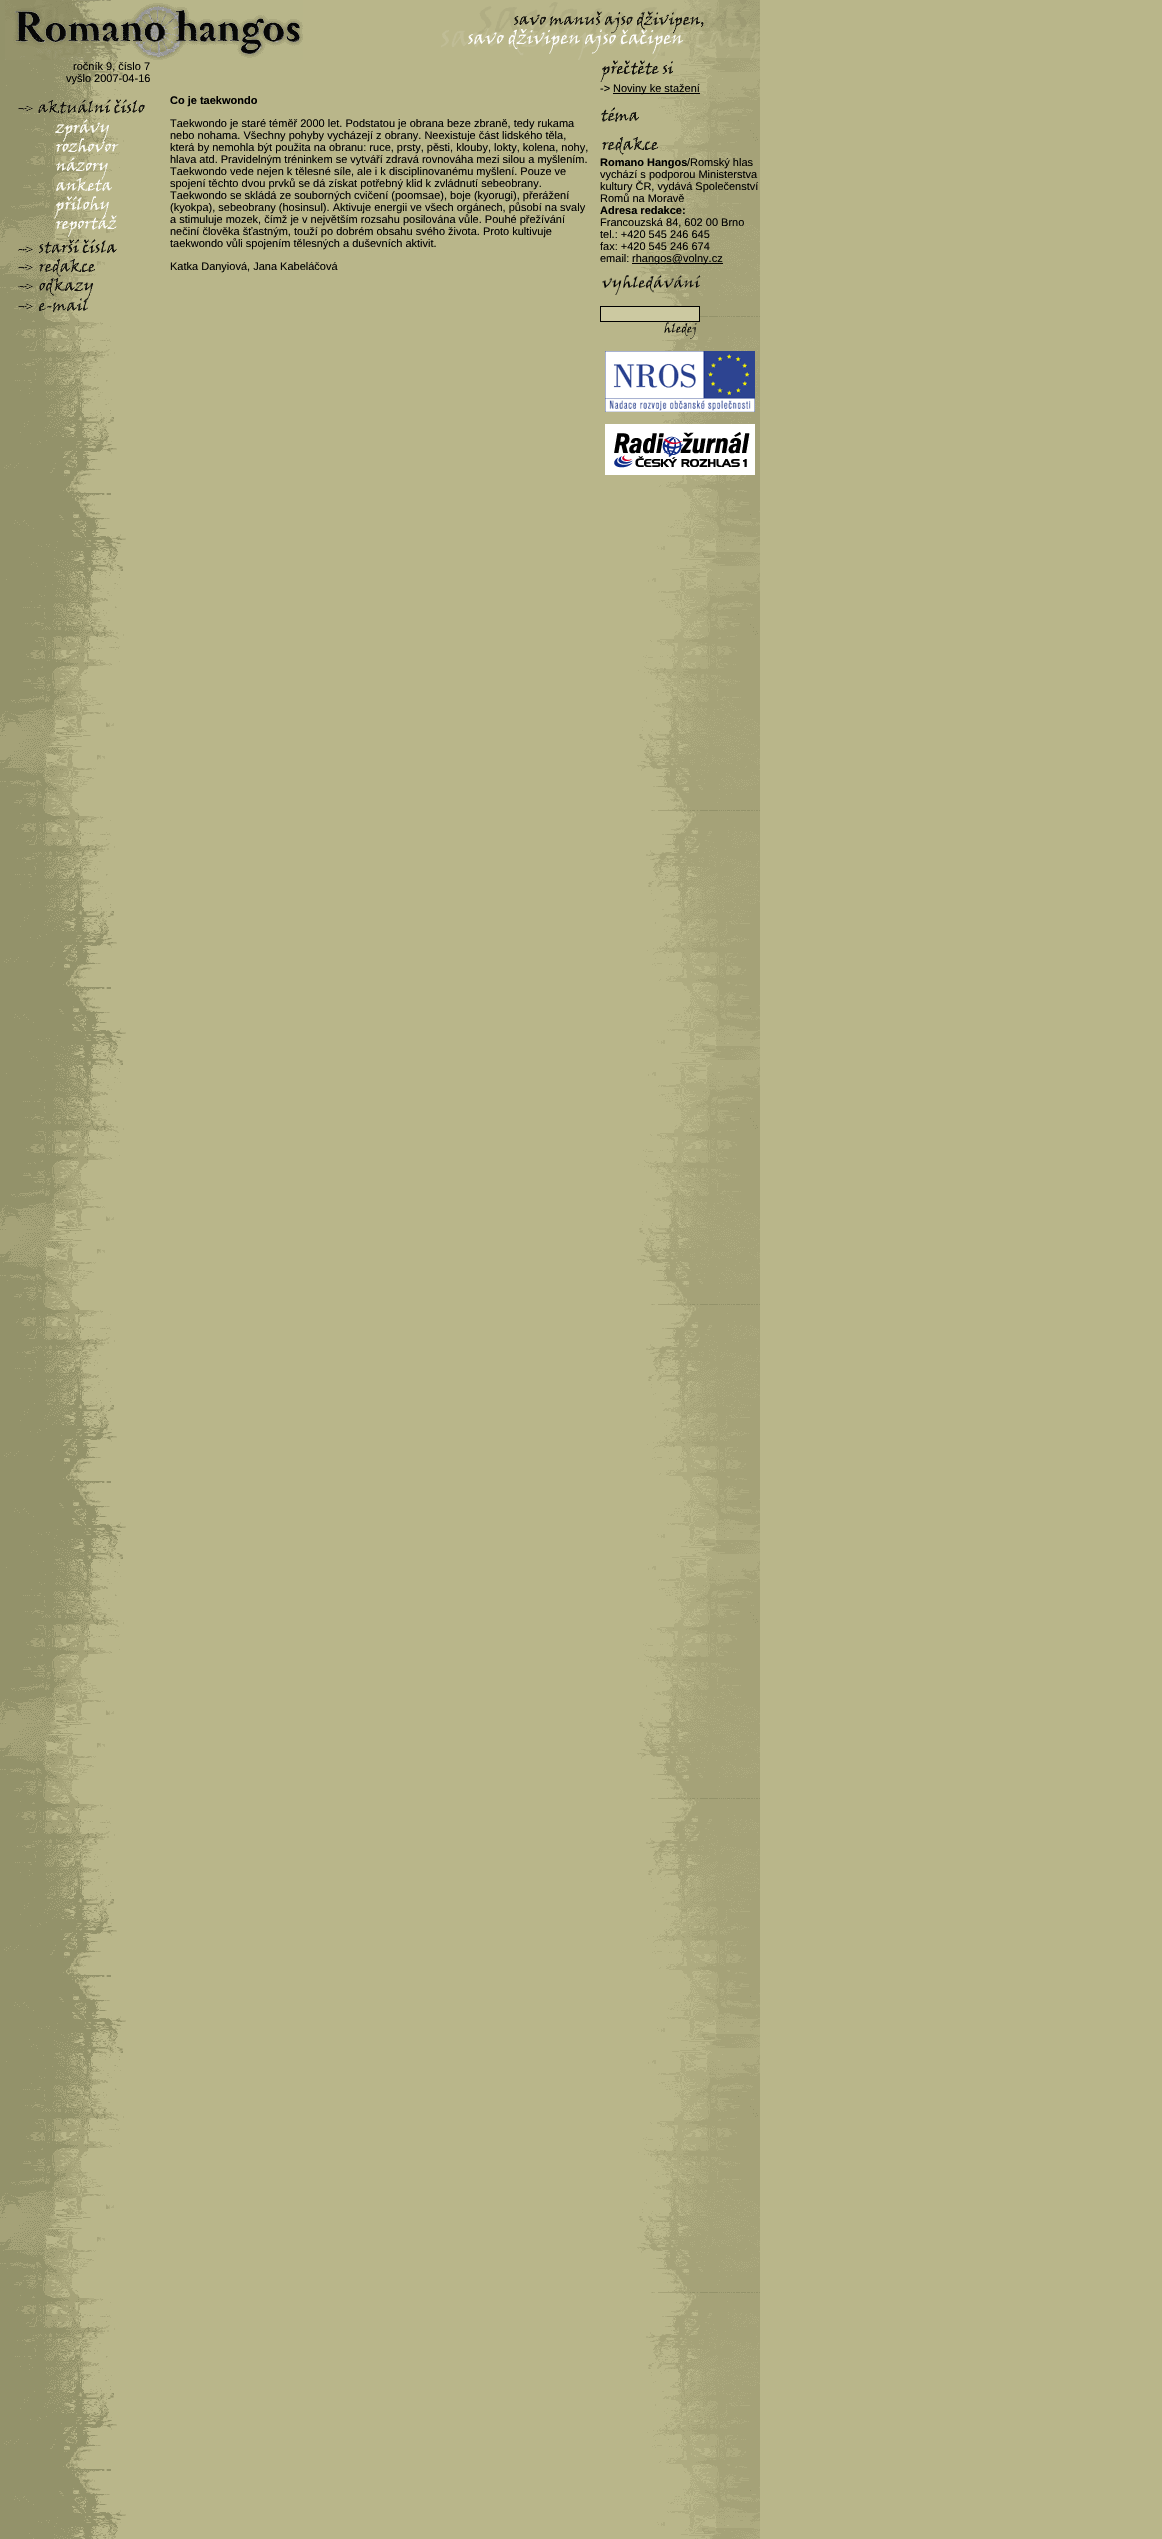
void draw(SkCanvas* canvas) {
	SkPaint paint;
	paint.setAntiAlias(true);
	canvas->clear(0xffb9b68a);
	canvas->drawImageRect(SkImages::DeferredFromEncodedData(SkData::MakeFromFileName("img1.png")), SkRect::MakeXYWH(0, 0, 760, 2539), SkSamplingOptions());
	canvas->drawImageRect(SkImages::DeferredFromEncodedData(SkData::MakeFromFileName("img2.png")), SkRect::MakeXYWH(5, 0, 298, 60), SkSamplingOptions());
	canvas->drawImageRect(SkImages::DeferredFromEncodedData(SkData::MakeFromFileName("img3.png")), SkRect::MakeXYWH(441, 0, 319, 60), SkSamplingOptions());
	SkFont f1(fontMgr->matchFamilyStyle("Liberation Sans", SkFontStyle::Normal()), 11);
	f1.setSubpixel(true);
	paint.setColor(0xff000000);
	canvas->drawString("ročník 9, číslo 7", 73, 70, f1, paint);
	canvas->drawString("vyšlo 2007-04-16", 66, 82, f1, paint);
	canvas->drawImageRect(SkImages::DeferredFromEncodedData(SkData::MakeFromFileName("img4.png")), SkRect::MakeXYWH(18, 99, 127, 15), SkSamplingOptions());
	canvas->drawImageRect(SkImages::DeferredFromEncodedData(SkData::MakeFromFileName("img5.png")), SkRect::MakeXYWH(55, 119, 54, 18), SkSamplingOptions());
	canvas->drawImageRect(SkImages::DeferredFromEncodedData(SkData::MakeFromFileName("img6.png")), SkRect::MakeXYWH(56, 137, 63, 15), SkSamplingOptions());
	canvas->drawImageRect(SkImages::DeferredFromEncodedData(SkData::MakeFromFileName("img7.png")), SkRect::MakeXYWH(56, 157, 52, 20), SkSamplingOptions());
	canvas->drawImageRect(SkImages::DeferredFromEncodedData(SkData::MakeFromFileName("img8.png")), SkRect::MakeXYWH(56, 177, 56, 20), SkSamplingOptions());
	canvas->drawImageRect(SkImages::DeferredFromEncodedData(SkData::MakeFromFileName("img9.png")), SkRect::MakeXYWH(55, 197, 62, 20), SkSamplingOptions());
	canvas->drawImageRect(SkImages::DeferredFromEncodedData(SkData::MakeFromFileName("img10.png")), SkRect::MakeXYWH(54, 217, 63, 20), SkSamplingOptions());
	canvas->drawImageRect(SkImages::DeferredFromEncodedData(SkData::MakeFromFileName("img11.png")), SkRect::MakeXYWH(18, 239, 99, 15), SkSamplingOptions());
	canvas->drawImageRect(SkImages::DeferredFromEncodedData(SkData::MakeFromFileName("img12.png")), SkRect::MakeXYWH(18, 259, 77, 18), SkSamplingOptions());
	canvas->drawImageRect(SkImages::DeferredFromEncodedData(SkData::MakeFromFileName("img13.png")), SkRect::MakeXYWH(18, 278, 75, 19), SkSamplingOptions());
	canvas->drawImageRect(SkImages::DeferredFromEncodedData(SkData::MakeFromFileName("img14.png")), SkRect::MakeXYWH(18, 297, 71, 15), SkSamplingOptions());
	SkFont f2(fontMgr->matchFamilyStyle("Liberation Sans", SkFontStyle::Bold()), 11);
	f2.setSubpixel(true);
	canvas->drawString("Co je taekwondo", 170, 104, f2, paint);
	canvas->drawString("Taekwondo je staré téměř 2000 let. Podstatou je obrana beze zbraně, tedy rukama", 170, 127, f1, paint);
	canvas->drawString("nebo nohama. Všechny pohyby vycházejí z obrany. Neexistuje část lidského těla,", 170, 139, f1, paint);
	canvas->drawString("která by nemohla být použita na obranu: ruce, prsty, pěsti, klouby, lokty, kolena, nohy,", 170, 151, f1, paint);
	canvas->drawString("hlava atd. Pravidelným tréninkem se vytváří zdravá rovnováha mezi silou a myšlením.", 170, 163, f1, paint);
	canvas->drawString("Taekwondo vede nejen k tělesné síle, ale i k disciplinovanému myšlení. Pouze ve", 170, 175, f1, paint);
	canvas->drawString("spojení těchto dvou prvků se dá získat potřebný klid k zvládnutí sebeobrany.", 170, 187, f1, paint);
	canvas->drawString("Taekwondo se skládá ze souborných cvičení (poomsae), boje (kyorugi), přerážení", 170, 199, f1, paint);
	canvas->drawString("(kyokpa), sebeobrany (hosinsul). Aktivuje energii ve všech orgánech, působí na svaly", 170, 211, f1, paint);
	canvas->drawString("a stimuluje mozek, čímž je v největším rozsahu posilována vůle. Pouhé přežívání", 170, 223, f1, paint);
	canvas->drawString("nečiní člověka šťastným, touží po dobrém obsahu svého života. Proto kultivuje", 170, 235, f1, paint);
	canvas->drawString("taekwondo vůli spojením tělesných a duševních aktivit.", 170, 247, f1, paint);
	canvas->drawString("Katka Danyiová, Jana Kabeláčová", 170, 270, f1, paint);
	canvas->drawImageRect(SkImages::DeferredFromEncodedData(SkData::MakeFromFileName("img15.png")), SkRect::MakeXYWH(600, 60, 73, 22), SkSamplingOptions());
	canvas->drawString("->", 600, 92, f1, paint);
	canvas->drawRect(SkRect::MakeXYWH(613, 93, 87, 1), paint);
	canvas->drawString("Noviny ke stažení", 613, 92, f1, paint);
	canvas->drawImageRect(SkImages::DeferredFromEncodedData(SkData::MakeFromFileName("img16.png")), SkRect::MakeXYWH(601, 107, 38, 15), SkSamplingOptions());
	canvas->drawImageRect(SkImages::DeferredFromEncodedData(SkData::MakeFromFileName("img17.png")), SkRect::MakeXYWH(602, 137, 56, 18), SkSamplingOptions());
	canvas->drawString("Romano Hangos", 600, 166, f2, paint);
	canvas->drawString("/Romský hlas", 687, 166, f1, paint);
	canvas->drawString("vychází s podporou Ministerstva", 600, 178, f1, paint);
	canvas->drawString("kultury ČR, vydává Společenství", 600, 190, f1, paint);
	canvas->drawString("Romů na Moravě", 600, 202, f1, paint);
	canvas->drawString("Adresa redakce:", 600, 214, f2, paint);
	canvas->drawString("Francouzská 84, 602 00 Brno", 600, 226, f1, paint);
	canvas->drawString("tel.: +420 545 246 645", 600, 238, f1, paint);
	canvas->drawString("fax: +420 545 246 674", 600, 250, f1, paint);
	canvas->drawString("email:", 600, 262, f1, paint);
	canvas->drawRect(SkRect::MakeXYWH(632, 263, 91, 1), paint);
	canvas->drawString("rhangos@volny.cz", 632, 262, f1, paint);
	canvas->drawImageRect(SkImages::DeferredFromEncodedData(SkData::MakeFromFileName("img18.png")), SkRect::MakeXYWH(602, 275, 99, 20), SkSamplingOptions());
	paint.setColor(0xffccc9a1);
	canvas->drawRect(SkRect::MakeXYWH(600.5, 306.5, 99, 15), paint);
	paint.setStroke(true);
	paint.setStrokeWidth(1);
	paint.setColor(0xff000000);
	canvas->drawRect(SkRect::MakeXYWH(600.5, 306.5, 99, 15), paint);
	canvas->drawImageRect(SkImages::DeferredFromEncodedData(SkData::MakeFromFileName("img19.png")), SkRect::MakeXYWH(664, 322, 33, 17), SkSamplingOptions());
	canvas->drawImageRect(SkImages::DeferredFromEncodedData(SkData::MakeFromFileName("img20.png")), SkRect::MakeXYWH(605, 351, 150, 61), SkSamplingOptions());
	canvas->drawImageRect(SkImages::DeferredFromEncodedData(SkData::MakeFromFileName("img21.png")), SkRect::MakeXYWH(605, 424, 150, 51), SkSamplingOptions());
}
